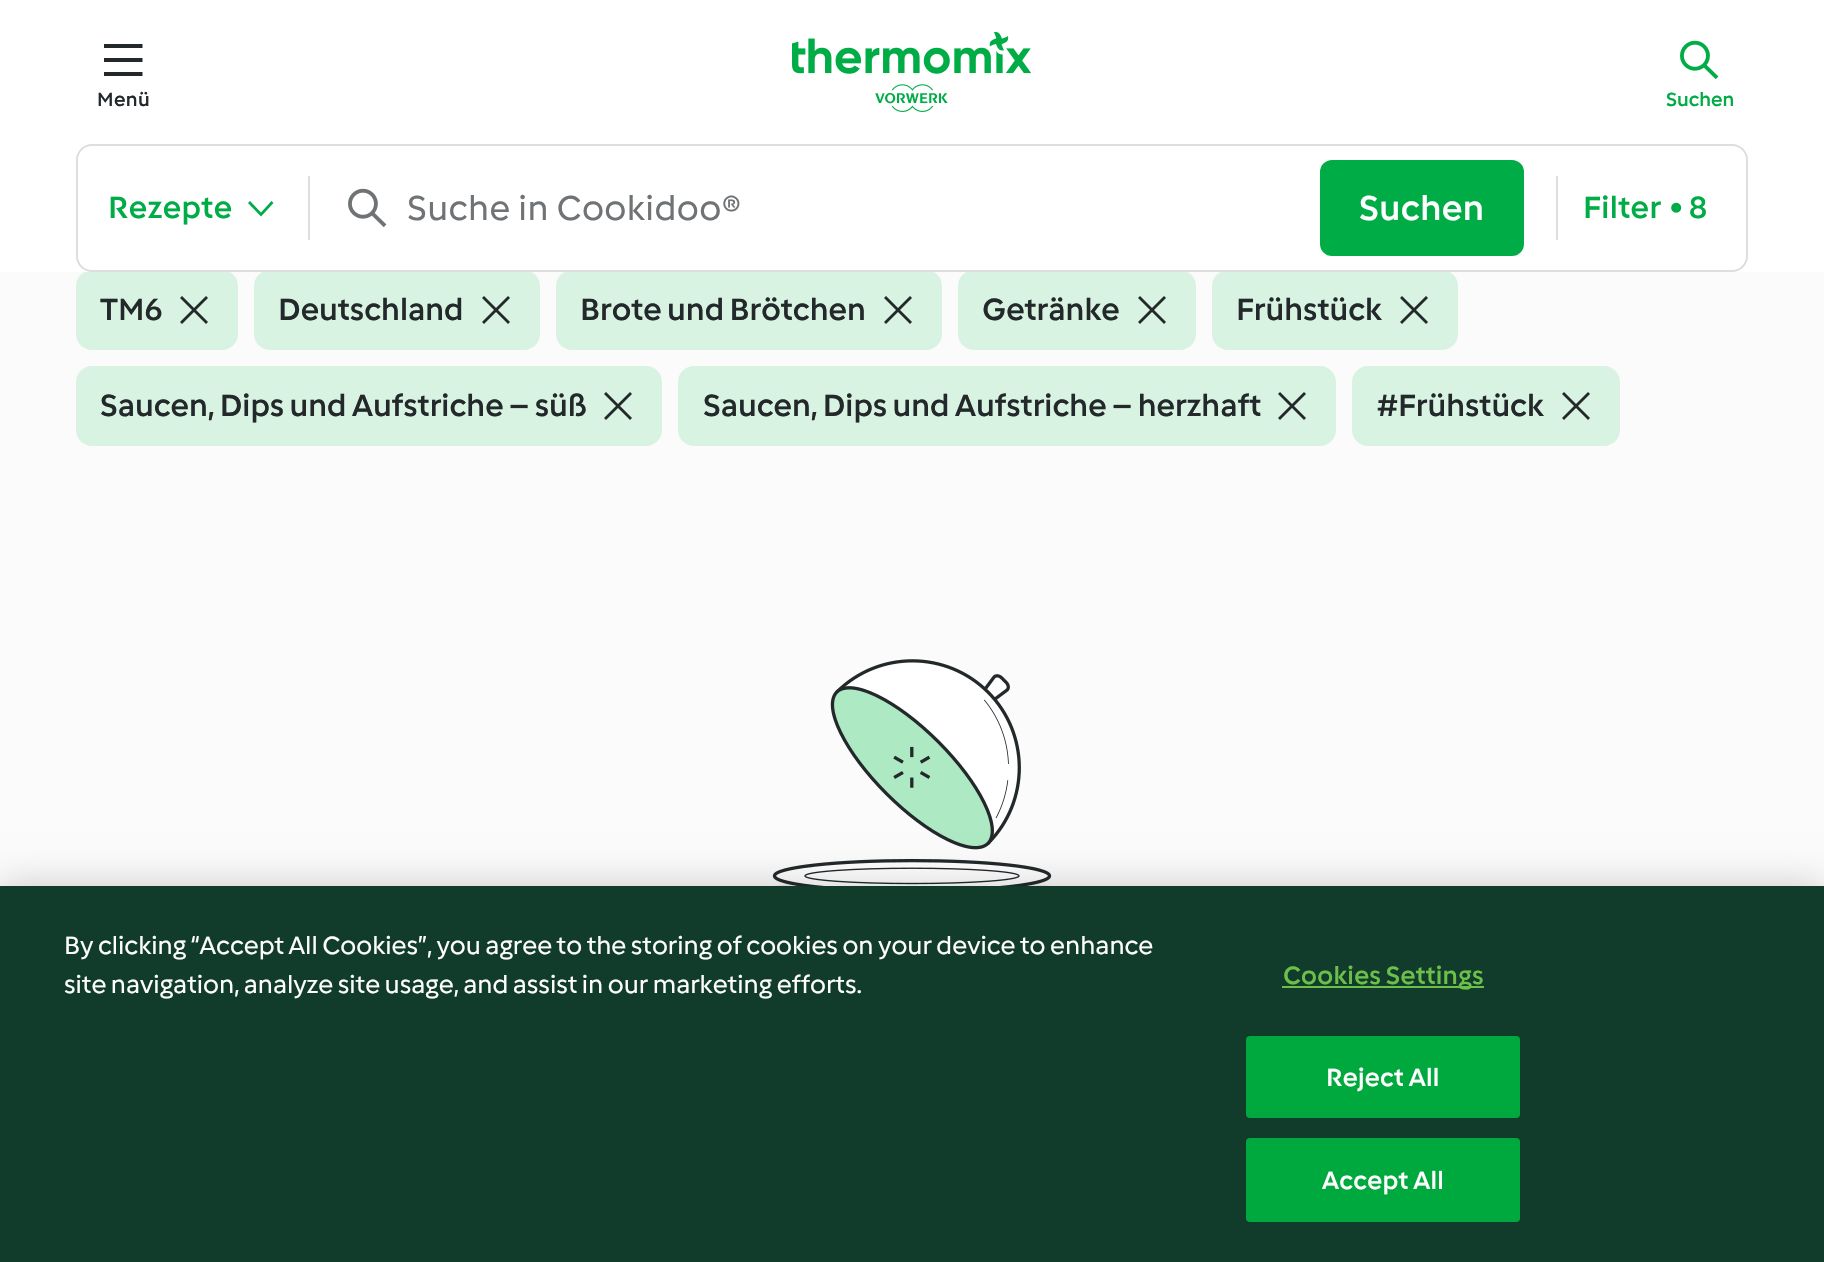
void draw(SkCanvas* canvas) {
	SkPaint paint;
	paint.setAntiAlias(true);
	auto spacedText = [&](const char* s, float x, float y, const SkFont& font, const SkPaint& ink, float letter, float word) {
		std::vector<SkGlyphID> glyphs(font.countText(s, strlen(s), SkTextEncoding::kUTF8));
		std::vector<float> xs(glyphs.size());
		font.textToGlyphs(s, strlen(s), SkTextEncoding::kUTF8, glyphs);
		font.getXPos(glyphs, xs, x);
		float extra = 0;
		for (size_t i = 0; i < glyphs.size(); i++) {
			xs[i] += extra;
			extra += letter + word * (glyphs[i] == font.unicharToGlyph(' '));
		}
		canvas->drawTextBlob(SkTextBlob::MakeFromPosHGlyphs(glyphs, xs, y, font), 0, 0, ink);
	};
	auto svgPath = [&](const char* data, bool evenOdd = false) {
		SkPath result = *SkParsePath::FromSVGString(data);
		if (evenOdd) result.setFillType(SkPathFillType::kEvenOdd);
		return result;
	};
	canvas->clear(0xfffbfbfb);
	paint.setColor(0xffd9f3e3);
	canvas->drawRoundRect(SkRect::MakeXYWH(76, 270, 162, 80), 16, 16, paint);
	canvas->drawRoundRect(SkRect::MakeXYWH(254, 270, 286, 80), 16, 16, paint);
	canvas->drawRoundRect(SkRect::MakeXYWH(556, 270, 386, 80), 16, 16, paint);
	canvas->drawRoundRect(SkRect::MakeXYWH(958, 270, 238, 80), 16, 16, paint);
	canvas->drawRoundRect(SkRect::MakeXYWH(1212, 270, 246, 80), 16, 16, paint);
	paint.setColor(0xffffffff);
	canvas->drawRect(SkRect::MakeXYWH(0, 0, 1824, 272), paint);
	paint.setColor(0xff23282a);
	canvas->drawPath(svgPath("M104 44H142.5V48H104ZM104 58H142.5V62H104ZM104 72H142.5V76H104Z"), paint);
	SkFont f1(fontMgr->matchFamilyStyle("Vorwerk", SkFontStyle(500, SkFontStyle::kNormal_Width, SkFontStyle::kUpright_Slant)), 20);
	f1.setSubpixel(true);
	spacedText("Menü", 97, 106, f1, paint, 0.4, 0);
	canvas->drawImageRect(SkImages::DeferredFromEncodedData(SkData::MakeFromFileName("img1.png")), SkRect::MakeXYWH(792, 32, 239, 80), SkSamplingOptions());
	canvas->drawImageRect(SkImages::DeferredFromEncodedData(SkData::MakeFromFileName("img2.png")), SkRect::MakeXYWH(1680, 40, 39, 40), SkSamplingOptions());
	paint.setColor(0xff00ac46);
	canvas->drawString("Suchen", 1666, 106, f1, paint);
	paint.setStroke(true);
	paint.setStrokeWidth(2);
	paint.setColor(0xffdcdfdc);
	canvas->drawRoundRect(SkRect::MakeXYWH(77, 145, 1670, 126), 15, 15, paint);
	SkFont f2(fontMgr->matchFamilyStyle("Vorwerk", SkFontStyle(500, SkFontStyle::kNormal_Width, SkFontStyle::kUpright_Slant)), 32);
	f2.setSubpixel(true);
	paint.setStroke(false);
	paint.setColor(0xff00ac46);
	spacedText("Rezepte", 108, 218, f2, paint, 0.4, 0);
	canvas->drawPath(svgPath("M261 212.5L250 201L248 203L261 216.5L273.5 203L271.5 201Z"), paint);
	paint.setColor(0xffdcdfdc);
	canvas->drawRect(SkRect::MakeXYWH(308, 176, 2, 64), paint);
	canvas->drawImageRect(SkImages::DeferredFromEncodedData(SkData::MakeFromFileName("img3.png")), SkRect::MakeXYWH(348, 188, 39, 40), SkSamplingOptions());
	SkFont f3(fontMgr->matchFamilyStyle("Vorwerk", SkFontStyle::Normal()), 36);
	f3.setSubpixel(true);
	paint.setColor(0xff707375);
	spacedText("Suche in Cookidoo®", 407, 220, f3, paint, 0.4, 1);
	paint.setColor(0xff00ac46);
	canvas->drawRoundRect(SkRect::MakeXYWH(1320, 160, 204, 96), 12, 12, paint);
	SkFont f4(fontMgr->matchFamilyStyle("Vorwerk", SkFontStyle(500, SkFontStyle::kNormal_Width, SkFontStyle::kUpright_Slant)), 36);
	f4.setSubpixel(true);
	paint.setColor(0xffffffff);
	spacedText("Suchen", 1359, 220, f4, paint, 0.4, 0);
	paint.setColor(0xffdcdfdc);
	canvas->drawRect(SkRect::MakeXYWH(1556, 176, 2, 64), paint);
	paint.setColor(0xff00ac46);
	spacedText("Filter", 1583, 218, f2, paint, 0.4, 0);
	spacedText("• 8", 1669, 218, f2, paint, 0.4, 0);
	paint.setColor(0xff23282a);
	canvas->drawString("TM6", 100, 320, f2, paint);
	canvas->drawImageRect(SkImages::DeferredFromEncodedData(SkData::MakeFromFileName("img4.png")), SkRect::MakeXYWH(180, 296, 28, 28), SkSamplingOptions());
	canvas->drawString("Deutschland", 278, 320, f2, paint);
	canvas->drawImageRect(SkImages::DeferredFromEncodedData(SkData::MakeFromFileName("img4.png")), SkRect::MakeXYWH(482, 296, 28, 28), SkSamplingOptions());
	canvas->drawString("Brote und Brötchen", 580, 320, f2, paint);
	canvas->drawImageRect(SkImages::DeferredFromEncodedData(SkData::MakeFromFileName("img4.png")), SkRect::MakeXYWH(884, 296, 28, 28), SkSamplingOptions());
	canvas->drawString("Getränke", 982, 320, f2, paint);
	canvas->drawImageRect(SkImages::DeferredFromEncodedData(SkData::MakeFromFileName("img4.png")), SkRect::MakeXYWH(1138, 296, 28, 28), SkSamplingOptions());
	canvas->drawString("Frühstück", 1236, 320, f2, paint);
	canvas->drawImageRect(SkImages::DeferredFromEncodedData(SkData::MakeFromFileName("img4.png")), SkRect::MakeXYWH(1400, 296, 28, 28), SkSamplingOptions());
	paint.setColor(0xffd9f3e3);
	canvas->drawRoundRect(SkRect::MakeXYWH(76, 366, 586, 80), 16, 16, paint);
	paint.setColor(0xff23282a);
	canvas->drawString("Saucen, Dips und Aufstriche – süß", 100, 416, f2, paint);
	canvas->drawImageRect(SkImages::DeferredFromEncodedData(SkData::MakeFromFileName("img4.png")), SkRect::MakeXYWH(604, 392, 28, 28), SkSamplingOptions());
	paint.setColor(0xffd9f3e3);
	canvas->drawRoundRect(SkRect::MakeXYWH(678, 366, 658, 80), 16, 16, paint);
	paint.setColor(0xff23282a);
	canvas->drawString("Saucen, Dips und Aufstriche – herzhaft", 703, 416, f2, paint);
	canvas->drawImageRect(SkImages::DeferredFromEncodedData(SkData::MakeFromFileName("img4.png")), SkRect::MakeXYWH(1278, 392, 28, 28), SkSamplingOptions());
	paint.setColor(0xffd9f3e3);
	canvas->drawRoundRect(SkRect::MakeXYWH(1352, 366, 268, 80), 16, 16, paint);
	paint.setColor(0xff23282a);
	canvas->drawString("#Frühstück", 1377, 416, f2, paint);
	canvas->drawImageRect(SkImages::DeferredFromEncodedData(SkData::MakeFromFileName("img4.png")), SkRect::MakeXYWH(1562, 392, 28, 28), SkSamplingOptions());
	canvas->drawImageRect(SkImages::DeferredFromEncodedData(SkData::MakeFromFileName("img5.png")), SkRect::MakeXYWH(772, 659, 280, 227), SkSamplingOptions());
	paint.setColor(0x33000000);
	paint.setMaskFilter(SkMaskFilter::MakeBlur(kNormal_SkBlurStyle, 18));
	canvas->drawRect(SkRect::MakeXYWH(0, 886, 1824, 376), paint);
	paint.setMaskFilter(nullptr);
	paint.setColor(0xff113c2b);
	canvas->drawRect(SkRect::MakeXYWH(0, 886, 1824, 376), paint);
	SkFont f5(fontMgr->matchFamilyStyle("Vorwerk", SkFontStyle::Normal()), 26);
	f5.setSubpixel(true);
	paint.setColor(0xffffffff);
	canvas->drawString("By clicking “Accept All Cookies”, you agree to the storing of cookies on your device to enhance", 64, 954, f5, paint);
	canvas->drawString("site navigation, analyze site usage, and assist in our marketing efforts.", 64, 993, f5, paint);
	paint.setColor(0xff6cc04a);
	canvas->drawRect(SkRect::MakeXYWH(1282, 986, 202, 2), paint);
	SkFont f6(fontMgr->matchFamilyStyle("Vorwerk", SkFontStyle(500, SkFontStyle::kNormal_Width, SkFontStyle::kUpright_Slant)), 26);
	f6.setSubpixel(true);
	spacedText("Cookies Settings", 1283, 984, f6, paint, 0.25, 0);
	paint.setColor(0xff00a93d);
	canvas->drawRoundRect(SkRect::MakeXYWH(1247, 1037, 272, 80), 3, 3, paint);
	paint.setStroke(true);
	canvas->drawRoundRect(SkRect::MakeXYWH(1247, 1037, 272, 80), 3, 3, paint);
	paint.setStroke(false);
	paint.setColor(0xffffffff);
	spacedText("Reject All", 1326, 1086, f6, paint, 0.25, 0);
	paint.setColor(0xff00a93d);
	canvas->drawRoundRect(SkRect::MakeXYWH(1247, 1139, 272, 82), 3, 3, paint);
	paint.setStroke(true);
	canvas->drawRoundRect(SkRect::MakeXYWH(1247, 1139, 272, 82), 3, 3, paint);
	paint.setStroke(false);
	paint.setColor(0xffffffff);
	spacedText("Accept All", 1322, 1189, f6, paint, 0.25, 0);
}
